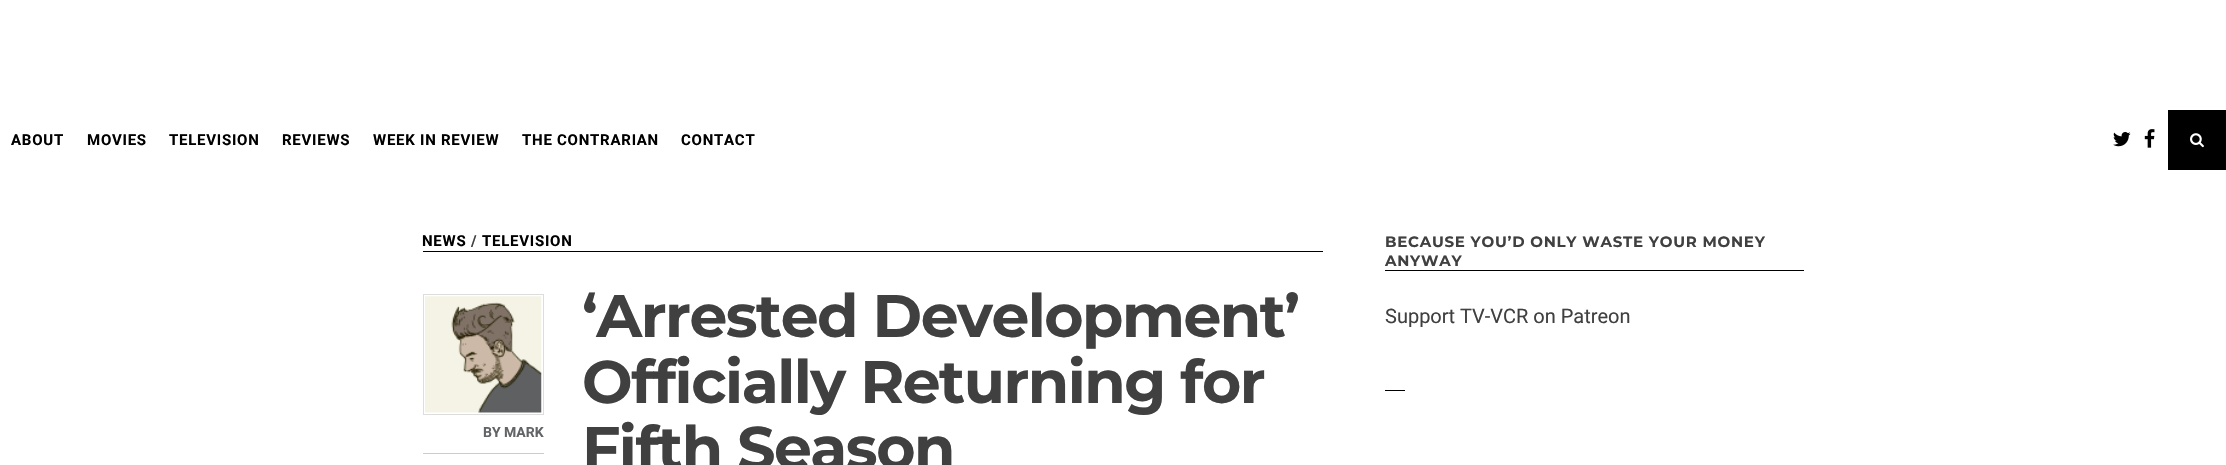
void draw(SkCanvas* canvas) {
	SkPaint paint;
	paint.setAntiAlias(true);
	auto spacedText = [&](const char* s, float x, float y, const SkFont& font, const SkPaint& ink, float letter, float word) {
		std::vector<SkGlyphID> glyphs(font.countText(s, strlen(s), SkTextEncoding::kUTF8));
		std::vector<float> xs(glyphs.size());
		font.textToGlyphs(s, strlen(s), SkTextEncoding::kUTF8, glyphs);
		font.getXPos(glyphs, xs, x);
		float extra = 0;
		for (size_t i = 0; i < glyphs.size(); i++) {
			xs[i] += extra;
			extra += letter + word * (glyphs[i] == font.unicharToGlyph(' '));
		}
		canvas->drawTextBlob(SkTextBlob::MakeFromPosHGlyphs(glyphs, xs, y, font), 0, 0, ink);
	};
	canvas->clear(0xffffffff);
	SkFont f1(fontMgr->matchFamilyStyle("Roboto", SkFontStyle::Bold()), 15);
	f1.setSubpixel(true);
	paint.setColor(0xff000000);
	spacedText("ABOUT", 11, 145, f1, paint, 0.75, 0);
	spacedText("MOVIES", 87, 145, f1, paint, 0.75, 0);
	spacedText("TELEVISION", 169, 145, f1, paint, 0.75, 0);
	spacedText("REVIEWS", 282, 145, f1, paint, 0.75, 0);
	spacedText("WEEK IN REVIEW", 373, 145, f1, paint, 0.75, 0);
	spacedText("THE CONTRARIAN", 522, 145, f1, paint, 0.75, 0);
	spacedText("CONTACT", 681, 145, f1, paint, 0.75, 0);
	canvas->drawImageRect(SkImages::DeferredFromEncodedData(SkData::MakeFromFileName("img1.png")), SkRect::MakeXYWH(2113, 132, 18, 15), SkSamplingOptions());
	canvas->drawImageRect(SkImages::DeferredFromEncodedData(SkData::MakeFromFileName("img2.png")), SkRect::MakeXYWH(2144, 129, 11, 19), SkSamplingOptions());
	canvas->drawRect(SkRect::MakeXYWH(2168, 110, 58, 60), paint);
	canvas->drawImageRect(SkImages::DeferredFromEncodedData(SkData::MakeFromFileName("img3.png")), SkRect::MakeXYWH(2190, 133, 14, 15), SkSamplingOptions());
	canvas->drawRect(SkRect::MakeXYWH(423, 251, 900, 1), paint);
	spacedText("NEWS", 422, 246, f1, paint, 0.75, 0);
	paint.setColor(0xff404040);
	spacedText("/", 471, 246, f1, paint, 0.75, 0);
	paint.setColor(0xff000000);
	spacedText("TELEVISION", 482, 246, f1, paint, 0.75, 0);
	paint.setStroke(true);
	paint.setStrokeWidth(1);
	paint.setColor(0xffdddddd);
	canvas->drawRect(SkRect::MakeXYWH(423.5, 294.5, 120, 120), paint);
	canvas->drawImageRect(SkImages::DeferredFromEncodedData(SkData::MakeFromFileName("img4.png")), SkRect::MakeXYWH(425, 296, 117, 117), SkSamplingOptions());
	SkFont f2(fontMgr->matchFamilyStyle("Roboto", SkFontStyle::Bold()), 14);
	f2.setSubpixel(true);
	paint.setStroke(false);
	paint.setColor(0xff636466);
	canvas->drawString("BY MARK", 483, 437, f2, paint);
	paint.setColor(0xffcccccc);
	canvas->drawRect(SkRect::MakeXYWH(423, 453, 121, 1), paint);
	SkFont f3(fontMgr->matchFamilyStyle("Montserrat", SkFontStyle::Bold()), 60);
	f3.setSubpixel(true);
	paint.setColor(0xff404040);
	spacedText("‘Arrested Development’", 582, 337, f3, paint, -1.5, 0);
	spacedText("Officially Returning for", 582, 403, f3, paint, -1.5, 0);
	spacedText("Fifth Season", 582, 469, f3, paint, -1.5, 0);
	paint.setColor(0xff000000);
	canvas->drawRect(SkRect::MakeXYWH(1385, 270, 419, 1), paint);
	SkFont f4(fontMgr->matchFamilyStyle("Montserrat", SkFontStyle::Bold()), 15);
	f4.setSubpixel(true);
	paint.setColor(0xff404040);
	spacedText("BECAUSE YOU’D ONLY WASTE YOUR MONEY", 1385, 247, f4, paint, 0.75, 0);
	spacedText("ANYWAY", 1385, 266, f4, paint, 0.75, 0);
	SkFont f5(fontMgr->matchFamilyStyle("Roboto", SkFontStyle::Normal()), 20);
	f5.setSubpixel(true);
	canvas->drawString("Support TV-VCR on Patreon", 1385, 323, f5, paint);
	paint.setColor(0xff000000);
	canvas->drawRect(SkRect::MakeXYWH(1385, 390, 20, 1), paint);
}
